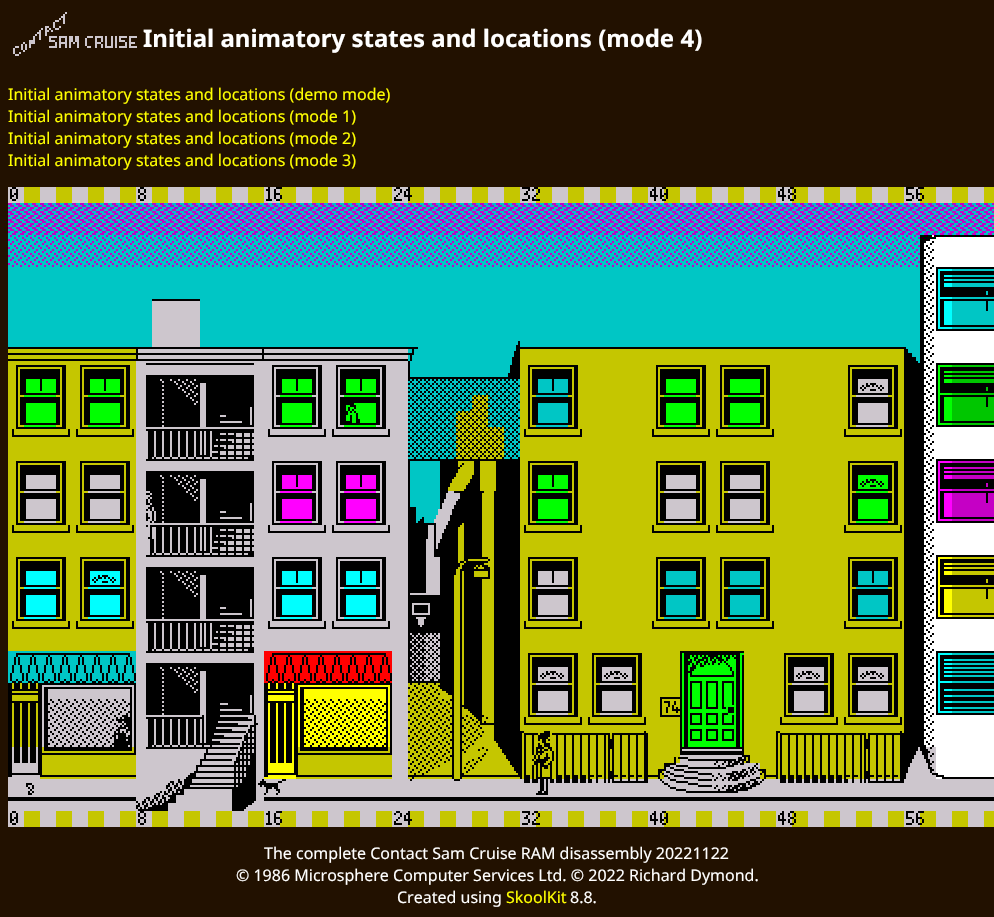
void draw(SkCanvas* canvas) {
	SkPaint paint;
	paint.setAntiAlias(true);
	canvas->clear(0xff221100);
	canvas->drawImageRect(SkImages::DeferredFromEncodedData(SkData::MakeFromFileName("img1.png")), SkRect::MakeXYWH(13, 12, 124, 44), SkSamplingOptions());
	SkFont f1(fontMgr->matchFamilyStyle("Noto Sans", SkFontStyle::Bold()), 24);
	f1.setSubpixel(true);
	paint.setColor(0xffffffff);
	canvas->drawString("Initial animatory states and locations (mode 4)", 143, 47, f1, paint);
	SkFont f2(fontMgr->matchFamilyStyle("Noto Sans", SkFontStyle::Normal()), 16);
	f2.setSubpixel(true);
	paint.setColor(0xffffff00);
	canvas->drawString("Initial animatory states and locations (demo mode)", 8, 100, f2, paint);
	canvas->drawString("Initial animatory states and locations (mode 1)", 8, 122, f2, paint);
	canvas->drawString("Initial animatory states and locations (mode 2)", 8, 144, f2, paint);
	canvas->drawString("Initial animatory states and locations (mode 3)", 8, 166, f2, paint);
	canvas->drawImageRect(SkImages::DeferredFromEncodedData(SkData::MakeFromFileName("img2.png")), SkRect::MakeXYWH(8, 187, 986, 640), SkSamplingOptions());
	paint.setColor(0xffffffff);
	canvas->drawString("The complete Contact Sam Cruise RAM disassembly 20221122", 264, 859, f2, paint);
	canvas->drawString("© 1986 Microsphere Computer Services Ltd. © 2022 Richard Dymond.", 236, 881, f2, paint);
	canvas->drawString("Created using", 397, 903, f2, paint);
	paint.setColor(0xffffff00);
	canvas->drawString("SkoolKit", 506, 903, f2, paint);
	paint.setColor(0xffffffff);
	canvas->drawString("8.8.", 570, 903, f2, paint);
}
